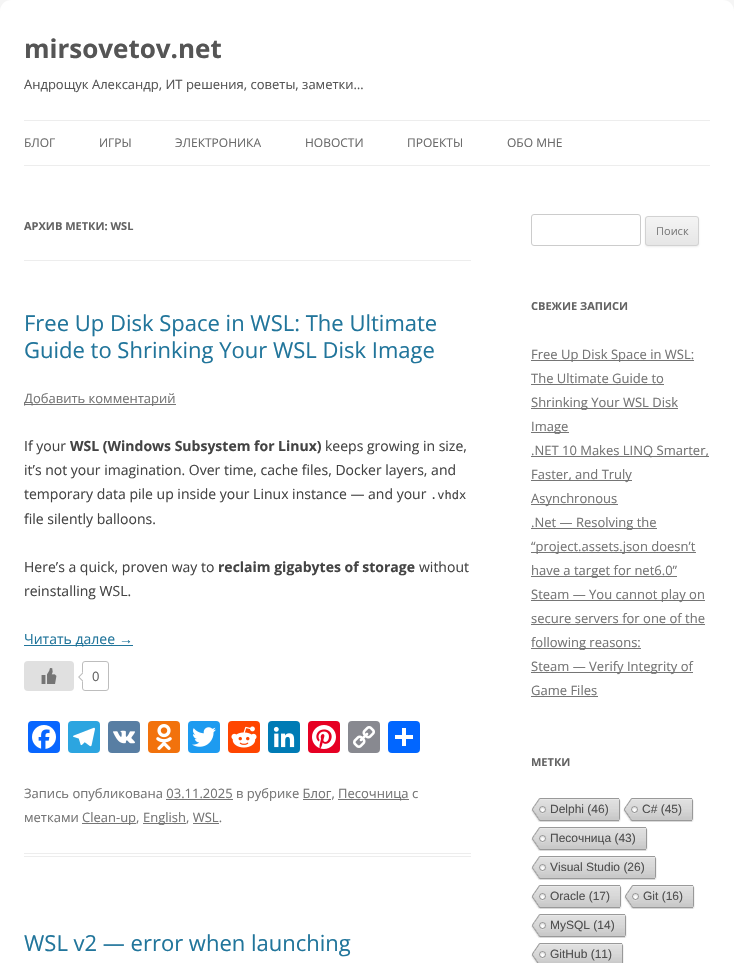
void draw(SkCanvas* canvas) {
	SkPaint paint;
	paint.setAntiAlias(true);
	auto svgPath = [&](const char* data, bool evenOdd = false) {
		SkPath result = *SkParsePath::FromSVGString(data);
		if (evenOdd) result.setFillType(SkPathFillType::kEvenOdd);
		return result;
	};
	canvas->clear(0xfff5f5f5);
	paint.setColor(0xffffffff);
	canvas->drawRoundRect(SkRect::MakeXYWH(0, 0, 734, 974), 11, 11, paint);
	SkFont f1(fontMgr->matchFamilyStyle("Open Sans", SkFontStyle::Bold()), 26);
	f1.setSubpixel(true);
	paint.setColor(0xff555555);
	canvas->drawString("mirsovetov.net", 24, 58, f1, paint);
	SkFont f2(fontMgr->matchFamilyStyle("Open Sans", SkFontStyle::Normal()), 13);
	f2.setSubpixel(true);
	canvas->drawString("Андрощук Александр, ИТ решения, советы, заметки…", 24, 89, f2, paint);
	paint.setColor(0xffededed);
	canvas->drawRect(SkRect::MakeXYWH(24, 120, 686, 1), paint);
	canvas->drawRect(SkRect::MakeXYWH(24, 165, 686, 1), paint);
	SkFont f3(fontMgr->matchFamilyStyle("Open Sans", SkFontStyle::Normal()), 12);
	f3.setSubpixel(true);
	paint.setColor(0xff6a6a6a);
	canvas->drawString("БЛОГ", 24, 147, f3, paint);
	canvas->drawString("ИГРЫ", 99, 147, f3, paint);
	canvas->drawString("ЭЛЕКТРОНИКА", 175, 147, f3, paint);
	canvas->drawString("НОВОСТИ", 305, 147, f3, paint);
	canvas->drawString("ПРОЕКТЫ", 407, 147, f3, paint);
	canvas->drawString("ОБО МНЕ", 507, 147, f3, paint);
	paint.setColor(0xffededed);
	canvas->drawRect(SkRect::MakeXYWH(24, 260, 447, 1), paint);
	SkFont f4(fontMgr->matchFamilyStyle("Open Sans", SkFontStyle::Bold()), 11);
	f4.setSubpixel(true);
	paint.setColor(0xff636363);
	canvas->drawString("АРХИВ МЕТКИ: WSL", 24, 230, f4, paint);
	paint.setColor(0xffededed);
	canvas->drawRect(SkRect::MakeXYWH(24, 853, 447, 1), paint);
	canvas->drawRect(SkRect::MakeXYWH(24, 856, 447, 1), paint);
	SkFont f5(fontMgr->matchFamilyStyle("Open Sans", SkFontStyle::Normal()), 22);
	f5.setSubpixel(true);
	paint.setColor(0xff21759b);
	canvas->drawString("Free Up Disk Space in WSL: The Ultimate", 24, 331, f5, paint);
	canvas->drawString("Guide to Shrinking Your WSL Disk Image", 24, 358, f5, paint);
	paint.setColor(0xff757575);
	canvas->drawRect(SkRect::MakeXYWH(24, 404, 152, 1), paint);
	canvas->drawString("Добавить комментарий", 24, 403, f2, paint);
	SkFont f6(fontMgr->matchFamilyStyle("Open Sans", SkFontStyle::Normal()), 14);
	f6.setSubpixel(true);
	paint.setColor(0xff444444);
	canvas->drawString("If your", 24, 451, f6, paint);
	SkFont f7(fontMgr->matchFamilyStyle("Open Sans", SkFontStyle::Bold()), 14);
	f7.setSubpixel(true);
	canvas->drawString("WSL (Windows Subsystem for Linux)", 70, 451, f7, paint);
	canvas->drawString("keeps growing in size,", 325, 451, f6, paint);
	canvas->drawString("it’s not your imagination. Over time, cache files, Docker layers, and", 24, 475, f6, paint);
	canvas->drawString("temporary data pile up inside your Linux instance — and your", 24, 499, f6, paint);
	SkFont f8(fontMgr->matchFamilyStyle("DejaVu Sans Mono", SkFontStyle::Normal()), 12);
	f8.setSubpixel(true);
	canvas->drawString(".vhdx", 430, 499, f8, paint);
	canvas->drawString("file silently balloons.", 24, 524, f6, paint);
	canvas->drawString("Here’s a quick, proven way to", 24, 572, f6, paint);
	canvas->drawString("reclaim gigabytes of storage", 218, 572, f7, paint);
	canvas->drawString("without", 419, 572, f6, paint);
	canvas->drawString("reinstalling WSL.", 24, 596, f6, paint);
	paint.setColor(0xff21759b);
	canvas->drawRect(SkRect::MakeXYWH(24, 645, 109, 1), paint);
	canvas->drawString("Читать далее", 24, 644, f6, paint);
	SkFont f9(fontMgr->matchFamilyStyle("Liberation Sans", SkFontStyle::Normal()), 14);
	f9.setSubpixel(true);
	canvas->drawString("→", 119, 644, f9, paint);
	paint.setColor(0xffe0e0e0);
	canvas->drawRoundRect(SkRect::MakeXYWH(24, 661, 50, 30), 4, 4, paint);
	canvas->drawImageRect(SkImages::DeferredFromEncodedData(SkData::MakeFromFileName("img1.png")), SkRect::MakeXYWH(41, 668, 16, 16), SkSamplingOptions());
	paint.setStroke(true);
	paint.setStrokeWidth(1);
	paint.setColor(0xffbdbdbd);
	canvas->drawRoundRect(SkRect::MakeXYWH(82.5, 661.5, 26, 29), 2.5, 2.5, paint);
	paint.setStroke(false);
	paint.setColor(0xffffffff);
	canvas->drawPath(svgPath("M83 672L88 677L83 682L78 677Z"), paint);
	paint.setColor(0xffbdbdbd);
	canvas->drawPath(svgPath("M83 682L78 677H79.5L83 680.5ZM78 677L83 672V673.5L79.5 677Z"), paint);
	paint.setColor(0xff636363);
	canvas->drawString("0", 92, 681, f2, paint);
	paint.setColor(0xff0866ff);
	canvas->drawRoundRect(SkRect::MakeXYWH(28, 721, 32, 32), 4, 4, paint);
	canvas->drawImageRect(SkImages::DeferredFromEncodedData(SkData::MakeFromFileName("img2.png")), SkRect::MakeXYWH(32, 725, 24, 24), SkSamplingOptions());
	paint.setColor(0xff2ca5e0);
	canvas->drawRoundRect(SkRect::MakeXYWH(68, 721, 32, 32), 4, 4, paint);
	canvas->drawImageRect(SkImages::DeferredFromEncodedData(SkData::MakeFromFileName("img3.png")), SkRect::MakeXYWH(73, 727, 22, 20), SkSamplingOptions());
	paint.setColor(0xff587ea3);
	canvas->drawRoundRect(SkRect::MakeXYWH(108, 721, 32, 32), 4, 4, paint);
	canvas->drawImageRect(SkImages::DeferredFromEncodedData(SkData::MakeFromFileName("img4.png")), SkRect::MakeXYWH(113, 730, 22, 14), SkSamplingOptions());
	paint.setColor(0xfff2720c);
	canvas->drawRoundRect(SkRect::MakeXYWH(148, 721, 32, 32), 4, 4, paint);
	canvas->drawImageRect(SkImages::DeferredFromEncodedData(SkData::MakeFromFileName("img5.png")), SkRect::MakeXYWH(156, 724, 16, 26), SkSamplingOptions());
	paint.setColor(0xff1d9bf0);
	canvas->drawRoundRect(SkRect::MakeXYWH(188, 721, 32, 32), 4, 4, paint);
	canvas->drawImageRect(SkImages::DeferredFromEncodedData(SkData::MakeFromFileName("img6.png")), SkRect::MakeXYWH(192, 727, 24, 20), SkSamplingOptions());
	paint.setColor(0xffff4500);
	canvas->drawRoundRect(SkRect::MakeXYWH(228, 721, 32, 32), 4, 4, paint);
	canvas->drawImageRect(SkImages::DeferredFromEncodedData(SkData::MakeFromFileName("img7.png")), SkRect::MakeXYWH(231, 726, 26, 22), SkSamplingOptions());
	paint.setColor(0xff007bb5);
	canvas->drawRoundRect(SkRect::MakeXYWH(268, 721, 32, 32), 4, 4, paint);
	canvas->drawImageRect(SkImages::DeferredFromEncodedData(SkData::MakeFromFileName("img8.png")), SkRect::MakeXYWH(273, 726, 22, 22), SkSamplingOptions());
	paint.setColor(0xffe60023);
	canvas->drawRoundRect(SkRect::MakeXYWH(308, 721, 32, 32), 4, 4, paint);
	canvas->drawImageRect(SkImages::DeferredFromEncodedData(SkData::MakeFromFileName("img9.png")), SkRect::MakeXYWH(312, 725, 24, 24), SkSamplingOptions());
	paint.setColor(0xff888990);
	canvas->drawRoundRect(SkRect::MakeXYWH(348, 721, 32, 32), 4, 4, paint);
	canvas->drawImageRect(SkImages::DeferredFromEncodedData(SkData::MakeFromFileName("img10.png")), SkRect::MakeXYWH(353, 726, 22, 22), SkSamplingOptions());
	paint.setColor(0xff0166ff);
	canvas->drawRoundRect(SkRect::MakeXYWH(388, 721, 32, 32), 4, 4, paint);
	paint.setColor(0xffffffff);
	canvas->drawRect(SkRect::MakeXYWH(402, 728, 4, 18), paint);
	canvas->drawRect(SkRect::MakeXYWH(395, 735, 18, 4), paint);
	paint.setColor(0xff757575);
	canvas->drawString("Запись опубликована 03.11.2025 в рубрике Блог,", 24, 798, f2, paint);
	canvas->drawRect(SkRect::MakeXYWH(338, 799, 71, 1), paint);
	canvas->drawString("Песочница с", 338, 798, f2, paint);
	canvas->drawRect(SkRect::MakeXYWH(166, 799, 67, 1), paint);
	canvas->drawRect(SkRect::MakeXYWH(303, 799, 28, 1), paint);
	canvas->drawString("метками", 24, 822, f2, paint);
	canvas->drawRect(SkRect::MakeXYWH(82, 823, 54, 1), paint);
	canvas->drawString("Clean-up,", 82, 822, f2, paint);
	canvas->drawRect(SkRect::MakeXYWH(143, 823, 43, 1), paint);
	canvas->drawString("English, WSL.", 143, 822, f2, paint);
	canvas->drawRect(SkRect::MakeXYWH(193, 823, 26, 1), paint);
	paint.setColor(0xff21759b);
	canvas->drawString("WSL v2 — error when launching", 24, 951, f5, paint);
	paint.setStroke(true);
	paint.setColor(0xffcccccc);
	canvas->drawRoundRect(SkRect::MakeXYWH(531.5, 214.5, 109, 31), 2.5, 2.5, paint);
	paint.setStroke(false);
	paint.setColor(0x1a404040);
	paint.setMaskFilter(SkMaskFilter::MakeBlur(kNormal_SkBlurStyle, 1));
	canvas->drawRoundRect(SkRect::MakeXYWH(645, 217, 54, 30), 3, 3, paint);
	paint.setMaskFilter(nullptr);
	canvas->save();
	canvas->clipPath(svgPath("M648 216H696C697.5 216 699 217.5 699 219V243C699 244.5 697.5 246 696 246H648C646.5 246 645 244.5 645 243V219C645 217.5 646.5 216 648 216Z"), true);
	{
		const SkColor colors[] = {0xfff4f4f4, 0xffe6e6e6};
		const float stops[] = {0, 1};
		const SkPoint ends[] = {{672, 217}, {672, 245}};
		paint.setShader(SkGradientShader::MakeLinear(ends, colors, stops, 2, SkTileMode::kClamp));
		paint.setAlpha(255);
	}
	canvas->drawRect(SkRect::MakeXYWH(645, 217, 54, 28), paint);
	canvas->restore();
	paint.setStroke(true);
	paint.setShader(nullptr);
	paint.setColor(0xffd2d2d2);
	canvas->drawRoundRect(SkRect::MakeXYWH(645.5, 216.5, 53, 29), 2.5, 2.5, paint);
	SkFont f10(fontMgr->matchFamilyStyle("Open Sans", SkFontStyle::Normal()), 11);
	f10.setSubpixel(true);
	paint.setStroke(false);
	paint.setColor(0xff7c7c7c);
	canvas->drawString("Поиск", 656, 235, f10, paint);
	paint.setColor(0xff636363);
	canvas->drawString("СВЕЖИЕ ЗАПИСИ", 531, 310, f4, paint);
	paint.setColor(0xff757575);
	canvas->drawRect(SkRect::MakeXYWH(531, 360, 163, 1), paint);
	canvas->drawString("Free Up Disk Space in WSL:", 531, 359, f2, paint);
	canvas->drawString("The Ultimate Guide to", 531, 383, f2, paint);
	canvas->drawRect(SkRect::MakeXYWH(531, 384, 133, 1), paint);
	canvas->drawRect(SkRect::MakeXYWH(531, 408, 147, 1), paint);
	canvas->drawString("Shrinking Your WSL Disk", 531, 407, f2, paint);
	canvas->drawRect(SkRect::MakeXYWH(531, 432, 38, 1), paint);
	canvas->drawString("Image", 531, 431, f2, paint);
	canvas->drawRect(SkRect::MakeXYWH(531, 456, 178, 1), paint);
	canvas->drawString(".NET 10 Makes LINQ Smarter,", 531, 455, f2, paint);
	canvas->drawRect(SkRect::MakeXYWH(531, 480, 101, 1), paint);
	canvas->drawString("Faster, and Truly", 531, 479, f2, paint);
	canvas->drawRect(SkRect::MakeXYWH(531, 504, 87, 1), paint);
	canvas->drawString("Asynchronous", 531, 503, f2, paint);
	canvas->drawRect(SkRect::MakeXYWH(531, 528, 126, 1), paint);
	canvas->drawString(".Net — Resolving the", 531, 527, f2, paint);
	canvas->drawRect(SkRect::MakeXYWH(531, 552, 165, 1), paint);
	canvas->drawString("“project.assets.json doesn’t", 531, 551, f2, paint);
	canvas->drawRect(SkRect::MakeXYWH(531, 576, 146, 1), paint);
	canvas->drawString("have a target for net6.0”", 531, 575, f2, paint);
	canvas->drawRect(SkRect::MakeXYWH(531, 600, 174, 1), paint);
	canvas->drawString("Steam — You cannot play on", 531, 599, f2, paint);
	canvas->drawString("secure servers for one of the", 531, 623, f2, paint);
	canvas->drawRect(SkRect::MakeXYWH(531, 624, 174, 1), paint);
	canvas->drawRect(SkRect::MakeXYWH(531, 648, 110, 1), paint);
	canvas->drawString("following reasons:", 531, 647, f2, paint);
	canvas->drawRect(SkRect::MakeXYWH(531, 672, 162, 1), paint);
	canvas->drawString("Steam — Verify Integrity of", 531, 671, f2, paint);
	canvas->drawString("Game Files", 531, 695, f2, paint);
	canvas->drawRect(SkRect::MakeXYWH(531, 696, 67, 1), paint);
	paint.setColor(0xff636363);
	canvas->drawString("МЕТКИ", 531, 766, f4, paint);
	canvas->drawImageRect(SkImages::DeferredFromEncodedData(SkData::MakeFromFileName("img11.png")), SkRect::MakeXYWH(531, 798, 88, 24), SkSamplingOptions());
	SkFont f11(fontMgr->matchFamilyStyle("Liberation Sans", SkFontStyle::Normal()), 12);
	f11.setSubpixel(true);
	paint.setColor(0xff4f4f4f);
	canvas->drawString("Delphi (46)", 550, 813, f11, paint);
	canvas->drawImageRect(SkImages::DeferredFromEncodedData(SkData::MakeFromFileName("img12.png")), SkRect::MakeXYWH(619, 798, 2, 24), SkSamplingOptions());
	canvas->drawImageRect(SkImages::DeferredFromEncodedData(SkData::MakeFromFileName("img13.png")), SkRect::MakeXYWH(623, 798, 69, 24), SkSamplingOptions());
	canvas->drawString("C# (45)", 642, 813, f11, paint);
	canvas->drawImageRect(SkImages::DeferredFromEncodedData(SkData::MakeFromFileName("img12.png")), SkRect::MakeXYWH(692, 798, 2, 24), SkSamplingOptions());
	canvas->drawImageRect(SkImages::DeferredFromEncodedData(SkData::MakeFromFileName("img14.png")), SkRect::MakeXYWH(531, 827, 115, 24), SkSamplingOptions());
	canvas->drawString("Песочница (43)", 550, 842, f11, paint);
	canvas->drawImageRect(SkImages::DeferredFromEncodedData(SkData::MakeFromFileName("img12.png")), SkRect::MakeXYWH(646, 827, 2, 24), SkSamplingOptions());
	canvas->drawImageRect(SkImages::DeferredFromEncodedData(SkData::MakeFromFileName("img15.png")), SkRect::MakeXYWH(531, 856, 124, 24), SkSamplingOptions());
	canvas->drawString("Visual Studio (26)", 550, 871, f11, paint);
	canvas->drawImageRect(SkImages::DeferredFromEncodedData(SkData::MakeFromFileName("img12.png")), SkRect::MakeXYWH(655, 856, 2, 24), SkSamplingOptions());
	canvas->drawImageRect(SkImages::DeferredFromEncodedData(SkData::MakeFromFileName("img16.png")), SkRect::MakeXYWH(531, 885, 89, 24), SkSamplingOptions());
	canvas->drawString("Oracle (17)", 550, 900, f11, paint);
	canvas->drawImageRect(SkImages::DeferredFromEncodedData(SkData::MakeFromFileName("img12.png")), SkRect::MakeXYWH(620, 885, 2, 24), SkSamplingOptions());
	canvas->drawImageRect(SkImages::DeferredFromEncodedData(SkData::MakeFromFileName("img13.png")), SkRect::MakeXYWH(624, 885, 69, 24), SkSamplingOptions());
	canvas->drawString("Git (16)", 643, 900, f11, paint);
	canvas->drawImageRect(SkImages::DeferredFromEncodedData(SkData::MakeFromFileName("img12.png")), SkRect::MakeXYWH(693, 885, 2, 24), SkSamplingOptions());
	canvas->drawImageRect(SkImages::DeferredFromEncodedData(SkData::MakeFromFileName("img17.png")), SkRect::MakeXYWH(531, 914, 94, 24), SkSamplingOptions());
	canvas->drawString("MySQL (14)", 550, 929, f11, paint);
	canvas->drawImageRect(SkImages::DeferredFromEncodedData(SkData::MakeFromFileName("img12.png")), SkRect::MakeXYWH(625, 914, 2, 24), SkSamplingOptions());
	canvas->drawImageRect(SkImages::DeferredFromEncodedData(SkData::MakeFromFileName("img18.png")), SkRect::MakeXYWH(531, 943, 91, 20), SkSamplingOptions());
	canvas->drawString("GitHub (11)", 550, 958, f11, paint);
	canvas->drawImageRect(SkImages::DeferredFromEncodedData(SkData::MakeFromFileName("img19.png")), SkRect::MakeXYWH(622, 943, 2, 20), SkSamplingOptions());
}
